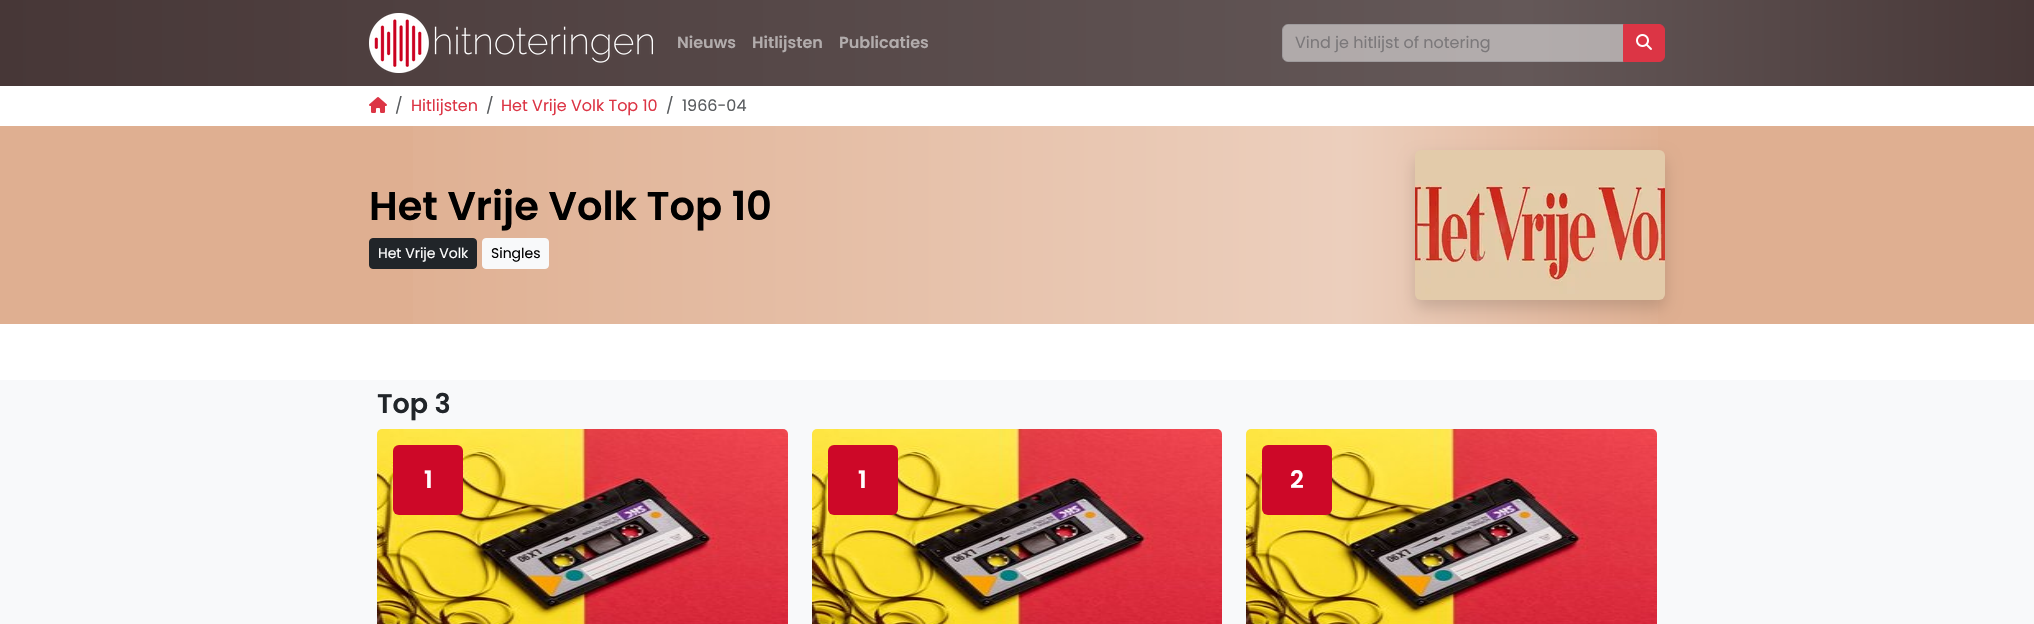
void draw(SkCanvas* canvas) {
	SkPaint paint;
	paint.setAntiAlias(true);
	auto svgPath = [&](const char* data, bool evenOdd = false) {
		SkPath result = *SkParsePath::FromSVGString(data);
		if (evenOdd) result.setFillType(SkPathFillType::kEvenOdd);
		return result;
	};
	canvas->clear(0xffffffff);
	{
		const SkColor colors[] = {0xff473737, 0xff645858, 0xff473737};
		const float stops[] = {0, 0.75, 1};
		const SkPoint ends[] = {{0, 43}, {2034, 43}};
		paint.setShader(SkGradientShader::MakeLinear(ends, colors, stops, 3, SkTileMode::kClamp));
		paint.setAlpha(255);
	}
	canvas->drawRect(SkRect::MakeXYWH(0, 0, 2034, 86), paint);
	canvas->drawImageRect(SkImages::DeferredFromEncodedData(SkData::MakeFromFileName("img1.png")), SkRect::MakeXYWH(369, 13, 284, 60), SkSamplingOptions());
	SkFont f1(fontMgr->matchFamilyStyle("Poppins", SkFontStyle(600, SkFontStyle::kNormal_Width, SkFontStyle::kUpright_Slant)), 16);
	f1.setSubpixel(true);
	paint.setShader(nullptr);
	paint.setColor(0xffb2acac);
	canvas->drawString("Nieuws", 677, 48, f1, paint);
	canvas->drawString("Hitlijsten", 752, 48, f1, paint);
	canvas->drawString("Publicaties", 839, 48, f1, paint);
	paint.setColor(0x80ffffff);
	canvas->drawPath(svgPath("M1288 25H1623V61H1288C1285 61 1283 59 1283 56V30C1283 27 1285 25 1288 25Z"), paint);
	paint.setStroke(true);
	paint.setStrokeWidth(1);
	paint.setColor(0x80dee2e6);
	canvas->drawPath(svgPath("M1288 24.5H1623.5V61.5H1288C1285 61.5 1282.5 59 1282.5 56V30C1282.5 27 1285 24.5 1288 24.5Z"), paint);
	SkFont f2(fontMgr->matchFamilyStyle("Poppins", SkFontStyle::Normal()), 16);
	f2.setSubpixel(true);
	paint.setStroke(false);
	paint.setColor(0xff7b787a);
	canvas->drawString("Vind je hitlijst of notering", 1295, 48, f2, paint);
	paint.setColor(0xffdc3545);
	canvas->drawPath(svgPath("M1623.5 24.5H1659C1662 24.5 1664.5 27 1664.5 30V56C1664.5 59 1662 61.5 1659 61.5H1623.5Z"), paint);
	paint.setStroke(true);
	canvas->drawPath(svgPath("M1623.5 24.5H1659C1662 24.5 1664.5 27 1664.5 30V56C1664.5 59 1662 61.5 1659 61.5H1623.5Z"), paint);
	canvas->drawImageRect(SkImages::DeferredFromEncodedData(SkData::MakeFromFileName("img2.png")), SkRect::MakeXYWH(1636, 34, 16, 16), SkSamplingOptions());
	canvas->drawImageRect(SkImages::DeferredFromEncodedData(SkData::MakeFromFileName("img3.png")), SkRect::MakeXYWH(369, 97, 18, 16), SkSamplingOptions());
	paint.setStroke(false);
	paint.setColor(0xff595c5f);
	canvas->drawString("/", 395, 111, f2, paint);
	paint.setColor(0xffdc3545);
	canvas->drawString("Hitlijsten", 411, 111, f2, paint);
	paint.setColor(0xff595c5f);
	canvas->drawString("/", 486, 111, f2, paint);
	paint.setColor(0xffdc3545);
	canvas->drawString("Het Vrije Volk Top 10", 501, 111, f2, paint);
	paint.setColor(0xff595c5f);
	canvas->drawString("/", 666, 111, f2, paint);
	canvas->drawString("1966-04", 682, 111, f2, paint);
	paint.setColor(0xffdfaf91);
	canvas->drawRect(SkRect::MakeXYWH(0, 126, 2034, 198), paint);
	{
		const SkColor colors[] = {0xffdfaf91, 0xffeccfbd, 0xffdfaf91};
		const float stops[] = {0, 0.75, 1};
		const SkPoint ends[] = {{357, 225}, {1677, 225}};
		paint.setShader(SkGradientShader::MakeLinear(ends, colors, stops, 3, SkTileMode::kClamp));
		paint.setAlpha(255);
	}
	canvas->drawRect(SkRect::MakeXYWH(413, 126, 1245, 198), paint);
	SkFont f3(fontMgr->matchFamilyStyle("Poppins", SkFontStyle(600, SkFontStyle::kNormal_Width, SkFontStyle::kUpright_Slant)), 40);
	f3.setSubpixel(true);
	paint.setShader(nullptr);
	paint.setColor(0xff000000);
	canvas->drawString("Het Vrije Volk Top 10", 369, 220, f3, paint);
	paint.setColor(0xff212529);
	canvas->drawRoundRect(SkRect::MakeXYWH(369.5, 238.5, 107, 30), 3.5, 3.5, paint);
	paint.setStroke(true);
	canvas->drawRoundRect(SkRect::MakeXYWH(369.5, 238.5, 107, 30), 3.5, 3.5, paint);
	SkFont f4(fontMgr->matchFamilyStyle("Poppins", SkFontStyle::Normal()), 14);
	f4.setSubpixel(true);
	paint.setStroke(false);
	paint.setColor(0xffffffff);
	canvas->drawString("Het Vrije Volk", 378, 258, f4, paint);
	paint.setColor(0xfff8f9fa);
	canvas->drawRoundRect(SkRect::MakeXYWH(482.5, 238.5, 66, 30), 3.5, 3.5, paint);
	paint.setStroke(true);
	canvas->drawRoundRect(SkRect::MakeXYWH(482.5, 238.5, 66, 30), 3.5, 3.5, paint);
	paint.setStroke(false);
	paint.setColor(0xff000000);
	canvas->drawString("Singles", 491, 258, f4, paint);
	paint.setColor(0x26000000);
	paint.setMaskFilter(SkMaskFilter::MakeBlur(kNormal_SkBlurStyle, 8));
	canvas->drawRoundRect(SkRect::MakeXYWH(1415, 158, 250, 150), 6, 6, paint);
	paint.setMaskFilter(nullptr);
	canvas->drawImageRect(SkImages::DeferredFromEncodedData(SkData::MakeFromFileName("img4.png")), SkRect::MakeXYWH(1415, 150, 250, 150), SkSamplingOptions());
	paint.setColor(0xfff8f9fa);
	canvas->drawRect(SkRect::MakeXYWH(0, 380, 2034, 244), paint);
	SkFont f5(fontMgr->matchFamilyStyle("Poppins", SkFontStyle(600, SkFontStyle::kNormal_Width, SkFontStyle::kUpright_Slant)), 27);
	f5.setSubpixel(true);
	paint.setColor(0xff212529);
	canvas->drawString("Top 3", 377, 413, f5, paint);
	canvas->drawImageRect(SkImages::DeferredFromEncodedData(SkData::MakeFromFileName("img5.png")), SkRect::MakeXYWH(377, 429, 411, 195), SkSamplingOptions());
	paint.setColor(0xffcd0828);
	canvas->drawRoundRect(SkRect::MakeXYWH(393, 445, 70, 70), 6, 6, paint);
	SkFont f6(fontMgr->matchFamilyStyle("Poppins", SkFontStyle(600, SkFontStyle::kNormal_Width, SkFontStyle::kUpright_Slant)), 24);
	f6.setSubpixel(true);
	paint.setColor(0xffffffff);
	canvas->drawString("1", 424, 488, f6, paint);
	canvas->drawImageRect(SkImages::DeferredFromEncodedData(SkData::MakeFromFileName("img6.png")), SkRect::MakeXYWH(812, 429, 410, 195), SkSamplingOptions());
	paint.setColor(0xffcd0828);
	canvas->drawRoundRect(SkRect::MakeXYWH(828, 445, 70, 70), 6, 6, paint);
	paint.setColor(0xffffffff);
	canvas->drawString("1", 858, 488, f6, paint);
	canvas->drawImageRect(SkImages::DeferredFromEncodedData(SkData::MakeFromFileName("img5.png")), SkRect::MakeXYWH(1246, 429, 411, 195), SkSamplingOptions());
	paint.setColor(0xffcd0828);
	canvas->drawRoundRect(SkRect::MakeXYWH(1262, 445, 70, 70), 6, 6, paint);
	paint.setColor(0xffffffff);
	canvas->drawString("2", 1290, 488, f6, paint);
}
